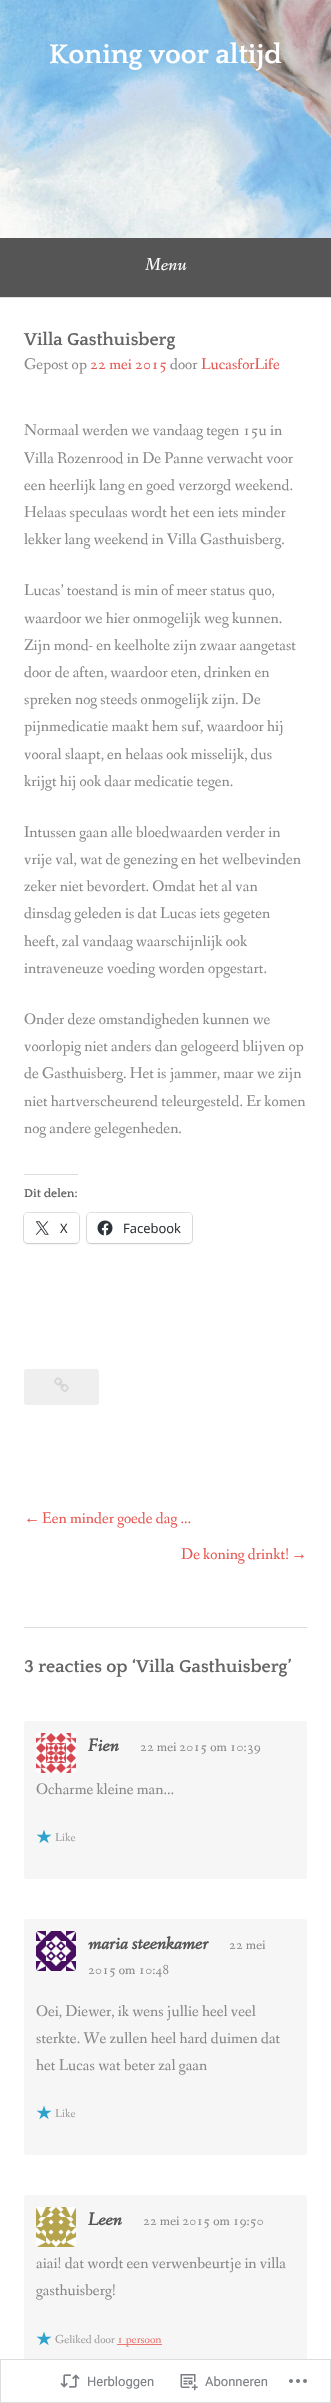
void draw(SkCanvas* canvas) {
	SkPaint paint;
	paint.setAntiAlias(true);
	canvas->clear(0xffffffff);
	canvas->drawImageRect(SkImages::DeferredFromEncodedData(SkData::MakeFromFileName("img1.png")), SkRect::MakeXYWH(0, 0, 331, 238), SkSamplingOptions());
	SkFont f1(fontMgr->matchFamilyStyle("Quattrocento", SkFontStyle::Bold()), 28);
	f1.setSubpixel(true);
	paint.setColor(0xffffffff);
	canvas->drawString("Koning voor altijd", 49, 63, f1, paint);
	paint.setColor(0xffdddddd);
	canvas->drawRect(SkRect::MakeXYWH(0, 297, 331, 1), paint);
	paint.setColor(0xff555555);
	canvas->drawRect(SkRect::MakeXYWH(0, 238, 331, 59), paint);
	SkFont f2(fontMgr->matchFamilyStyle("Fanwood Text", SkFontStyle::Italic()), 18);
	f2.setSubpixel(true);
	paint.setColor(0xffffffff);
	canvas->drawString("Menu", 145, 270, f2, paint);
	SkFont f3(fontMgr->matchFamilyStyle("Quattrocento", SkFontStyle::Bold()), 18);
	f3.setSubpixel(true);
	paint.setColor(0xff666666);
	canvas->drawString("Villa Gasthuisberg", 24, 345, f3, paint);
	SkFont f4(fontMgr->matchFamilyStyle("Fanwood Text", SkFontStyle::Normal()), 16);
	f4.setSubpixel(true);
	paint.setColor(0xff888888);
	canvas->drawString("Gepost op", 24, 369, f4, paint);
	paint.setColor(0xffe8554e);
	canvas->drawString("22 mei 2015", 90, 369, f4, paint);
	paint.setColor(0xff888888);
	canvas->drawString("door", 170, 369, f4, paint);
	paint.setColor(0xffe8554e);
	canvas->drawString("LucasforLife", 201, 369, f4, paint);
	paint.setColor(0xff888888);
	canvas->drawString("Normaal werden we vandaag tegen 15u in", 24, 435, f4, paint);
	canvas->drawString("Villa Rozenrood in De Panne verwacht voor", 24, 463, f4, paint);
	canvas->drawString("een heerlijk lang en goed verzorgd weekend.", 24, 490, f4, paint);
	canvas->drawString("Helaas speculaas wordt het een iets minder", 24, 517, f4, paint);
	canvas->drawString("lekker lang weekend in Villa Gasthuisberg.", 24, 544, f4, paint);
	canvas->drawString("Lucas’ toestand is min of meer status quo,", 24, 595, f4, paint);
	canvas->drawString("waardoor we hier onmogelijk weg kunnen.", 24, 623, f4, paint);
	canvas->drawString("Zijn mond- en keelholte zijn zwaar aangetast", 24, 650, f4, paint);
	canvas->drawString("door de aften, waardoor eten, drinken en", 24, 677, f4, paint);
	canvas->drawString("spreken nog steeds onmogelijk zijn. De", 24, 704, f4, paint);
	canvas->drawString("pijnmedicatie maakt hem suf, waardoor hij", 24, 731, f4, paint);
	canvas->drawString("vooral slaapt, en helaas ook misselijk, dus", 24, 759, f4, paint);
	canvas->drawString("krijgt hij ook daar medicatie tegen.", 24, 786, f4, paint);
	canvas->drawString("Intussen gaan alle bloedwaarden verder in", 24, 837, f4, paint);
	canvas->drawString("vrije val, wat de genezing en het welbevinden", 24, 864, f4, paint);
	canvas->drawString("zeker niet bevordert. Omdat het al van", 24, 891, f4, paint);
	canvas->drawString("dinsdag geleden is dat Lucas iets gegeten", 24, 918, f4, paint);
	canvas->drawString("heeft, zal vandaag waarschijnlijk ook", 24, 946, f4, paint);
	canvas->drawString("intraveneuze voeding worden opgestart.", 24, 973, f4, paint);
	canvas->drawString("Onder deze omstandigheden kunnen we", 24, 1024, f4, paint);
	canvas->drawString("voorlopig niet anders dan gelogeerd blijven op", 24, 1051, f4, paint);
	canvas->drawString("de Gasthuisberg. Het is jammer, maar we zijn", 24, 1078, f4, paint);
	canvas->drawString("niet hartverscheurend teleurgesteld. Er komen", 24, 1106, f4, paint);
	canvas->drawString("nog andere gelegenheden.", 24, 1133, f4, paint);
	paint.setColor(0xffdcdcde);
	canvas->drawRect(SkRect::MakeXYWH(24, 1174, 54, 1), paint);
	SkFont f5(fontMgr->matchFamilyStyle("Quattrocento", SkFontStyle::Bold()), 12);
	f5.setSubpixel(true);
	paint.setColor(0xff666666);
	canvas->drawString("Dit delen:", 24, 1197, f5, paint);
	paint.setStroke(true);
	paint.setStrokeWidth(1);
	paint.setColor(0xffe0e0e0);
	canvas->drawRoundRect(SkRect::MakeXYWH(23.5, 1212.5, 56, 31), 4.5, 4.5, paint);
	paint.setStroke(false);
	paint.setColor(0x1f000000);
	paint.setMaskFilter(SkMaskFilter::MakeBlur(kNormal_SkBlurStyle, 1));
	canvas->drawRoundRect(SkRect::MakeXYWH(24, 1214, 55, 30), 4, 4, paint);
	paint.setMaskFilter(nullptr);
	paint.setColor(0xffffffff);
	canvas->drawRoundRect(SkRect::MakeXYWH(24, 1213, 55, 30), 4, 4, paint);
	canvas->drawImageRect(SkImages::DeferredFromEncodedData(SkData::MakeFromFileName("img2.png")), SkRect::MakeXYWH(35, 1221, 14, 14), SkSamplingOptions());
	SkFont f6(fontMgr->matchFamilyStyle("Open Sans", SkFontStyle::Normal()), 13);
	f6.setSubpixel(true);
	paint.setColor(0xff2c3338);
	canvas->drawString("X", 60, 1233, f6, paint);
	paint.setStroke(true);
	paint.setColor(0xffe0e0e0);
	canvas->drawRoundRect(SkRect::MakeXYWH(86.5, 1212.5, 106, 31), 4.5, 4.5, paint);
	paint.setStroke(false);
	paint.setColor(0x1f000000);
	paint.setMaskFilter(SkMaskFilter::MakeBlur(kNormal_SkBlurStyle, 1));
	canvas->drawRoundRect(SkRect::MakeXYWH(87, 1214, 105, 30), 4, 4, paint);
	paint.setMaskFilter(nullptr);
	paint.setColor(0xffffffff);
	canvas->drawRoundRect(SkRect::MakeXYWH(87, 1213, 105, 30), 4, 4, paint);
	canvas->drawImageRect(SkImages::DeferredFromEncodedData(SkData::MakeFromFileName("img3.png")), SkRect::MakeXYWH(97, 1220, 16, 16), SkSamplingOptions());
	paint.setColor(0xff2c3338);
	canvas->drawString("Facebook", 123, 1233, f6, paint);
	paint.setColor(0xffefefef);
	canvas->drawRoundRect(SkRect::MakeXYWH(24, 1369, 75, 36), 3, 3, paint);
	canvas->drawImageRect(SkImages::DeferredFromEncodedData(SkData::MakeFromFileName("img4.png")), SkRect::MakeXYWH(54, 1377, 15, 15), SkSamplingOptions());
	SkFont f7(fontMgr->matchFamilyStyle("Liberation Serif", SkFontStyle::Normal()), 16);
	f7.setSubpixel(true);
	paint.setColor(0xffe8554e);
	canvas->drawString("←", 24, 1523, f7, paint);
	canvas->drawString("Een minder goede dag …", 42, 1523, f4, paint);
	canvas->drawString("De koning drinkt!", 181, 1559, f4, paint);
	canvas->drawString("→", 291, 1559, f7, paint);
	paint.setColor(0xffdddddd);
	canvas->drawRect(SkRect::MakeXYWH(24, 1627, 283, 1), paint);
	paint.setColor(0xff666666);
	canvas->drawString("3 reacties op ‘Villa Gasthuisberg’", 24, 1672, f3, paint);
	paint.setColor(0xfff6f6f6);
	canvas->drawRoundRect(SkRect::MakeXYWH(24, 1721, 283, 158), 3, 3, paint);
	canvas->drawImageRect(SkImages::DeferredFromEncodedData(SkData::MakeFromFileName("img5.png")), SkRect::MakeXYWH(36, 1733, 40, 40), SkSamplingOptions());
	SkFont f8(fontMgr->matchFamilyStyle("Fanwood Text", SkFontStyle::BoldItalic()), 18);
	f8.setSubpixel(true);
	paint.setColor(0xff555555);
	canvas->drawString("Fien", 88, 1751, f8, paint);
	SkFont f9(fontMgr->matchFamilyStyle("Fanwood Text", SkFontStyle::Normal()), 14);
	f9.setSubpixel(true);
	paint.setColor(0xff888888);
	canvas->drawString("22 mei 2015 om 10:39", 140, 1751, f9, paint);
	canvas->drawString("Ocharme kleine man…", 36, 1794, f4, paint);
	canvas->drawImageRect(SkImages::DeferredFromEncodedData(SkData::MakeFromFileName("img6.png")), SkRect::MakeXYWH(36, 1829, 16, 15), SkSamplingOptions());
	SkFont f10(fontMgr->matchFamilyStyle("Fanwood Text", SkFontStyle::Normal()), 12);
	f10.setSubpixel(true);
	paint.setColor(0xff9e9e9e);
	canvas->drawString("Like", 55, 1841, f10, paint);
	paint.setColor(0xfff6f6f6);
	canvas->drawRoundRect(SkRect::MakeXYWH(24, 1919, 283, 236), 3, 3, paint);
	canvas->drawImageRect(SkImages::DeferredFromEncodedData(SkData::MakeFromFileName("img7.png")), SkRect::MakeXYWH(36, 1931, 40, 40), SkSamplingOptions());
	paint.setColor(0xff555555);
	canvas->drawString("maria steenkamer", 88, 1949, f8, paint);
	paint.setColor(0xff888888);
	canvas->drawString("22 mei", 229, 1949, f9, paint);
	canvas->drawString("2015 om 10:48", 88, 1974, f9, paint);
	canvas->drawString("Oei, Diewer, ik wens jullie heel veel", 36, 2016, f4, paint);
	canvas->drawString("sterkte. We zullen heel hard duimen dat", 36, 2043, f4, paint);
	canvas->drawString("het Lucas wat beter zal gaan", 36, 2070, f4, paint);
	canvas->drawImageRect(SkImages::DeferredFromEncodedData(SkData::MakeFromFileName("img6.png")), SkRect::MakeXYWH(36, 2105, 16, 15), SkSamplingOptions());
	paint.setColor(0xff9e9e9e);
	canvas->drawString("Like", 55, 2117, f10, paint);
	paint.setColor(0xfff6f6f6);
	canvas->drawRoundRect(SkRect::MakeXYWH(24, 2195, 283, 186), 3, 3, paint);
	canvas->drawImageRect(SkImages::DeferredFromEncodedData(SkData::MakeFromFileName("img8.png")), SkRect::MakeXYWH(36, 2207, 40, 40), SkSamplingOptions());
	paint.setColor(0xff555555);
	canvas->drawString("Leen", 88, 2225, f8, paint);
	paint.setColor(0xff888888);
	canvas->drawString("22 mei 2015 om 19:50", 143, 2225, f9, paint);
	canvas->drawString("aiai! dat wordt een verwenbeurtje in villa", 36, 2268, f4, paint);
	canvas->drawString("gasthuisberg!", 36, 2295, f4, paint);
	canvas->drawImageRect(SkImages::DeferredFromEncodedData(SkData::MakeFromFileName("img6.png")), SkRect::MakeXYWH(36, 2331, 16, 15), SkSamplingOptions());
	paint.setColor(0xff9e9e9e);
	canvas->drawString("Geliked door", 55, 2343, f10, paint);
	paint.setColor(0xffeb7570);
	canvas->drawRect(SkRect::MakeXYWH(117, 2344, 45, 1), paint);
	canvas->drawString("1 persoon", 117, 2343, f10, paint);
	paint.setColor(0xfaffffff);
	canvas->drawRect(SkRect::MakeXYWH(24, 2360, 283, 21), paint);
	paint.setStroke(true);
	paint.setColor(0xffdddddf);
	canvas->drawRect(SkRect::MakeXYWH(0.5, 2359.5, 330, 43), paint);
	canvas->drawImageRect(SkImages::DeferredFromEncodedData(SkData::MakeFromFileName("img9.png")), SkRect::MakeXYWH(60, 2374, 20, 14), SkSamplingOptions());
	SkFont f11(fontMgr->matchFamilyStyle("Roboto", SkFontStyle::Normal()), 13);
	f11.setSubpixel(true);
	paint.setStroke(false);
	paint.setColor(0xff7b7f84);
	canvas->drawString("Herbloggen", 87, 2386, f11, paint);
	canvas->drawImageRect(SkImages::DeferredFromEncodedData(SkData::MakeFromFileName("img10.png")), SkRect::MakeXYWH(180, 2374, 18, 17), SkSamplingOptions());
	canvas->drawString("Abonneren", 205, 2386, f11, paint);
	canvas->drawImageRect(SkImages::DeferredFromEncodedData(SkData::MakeFromFileName("img11.png")), SkRect::MakeXYWH(289, 2379, 18, 4), SkSamplingOptions());
}
